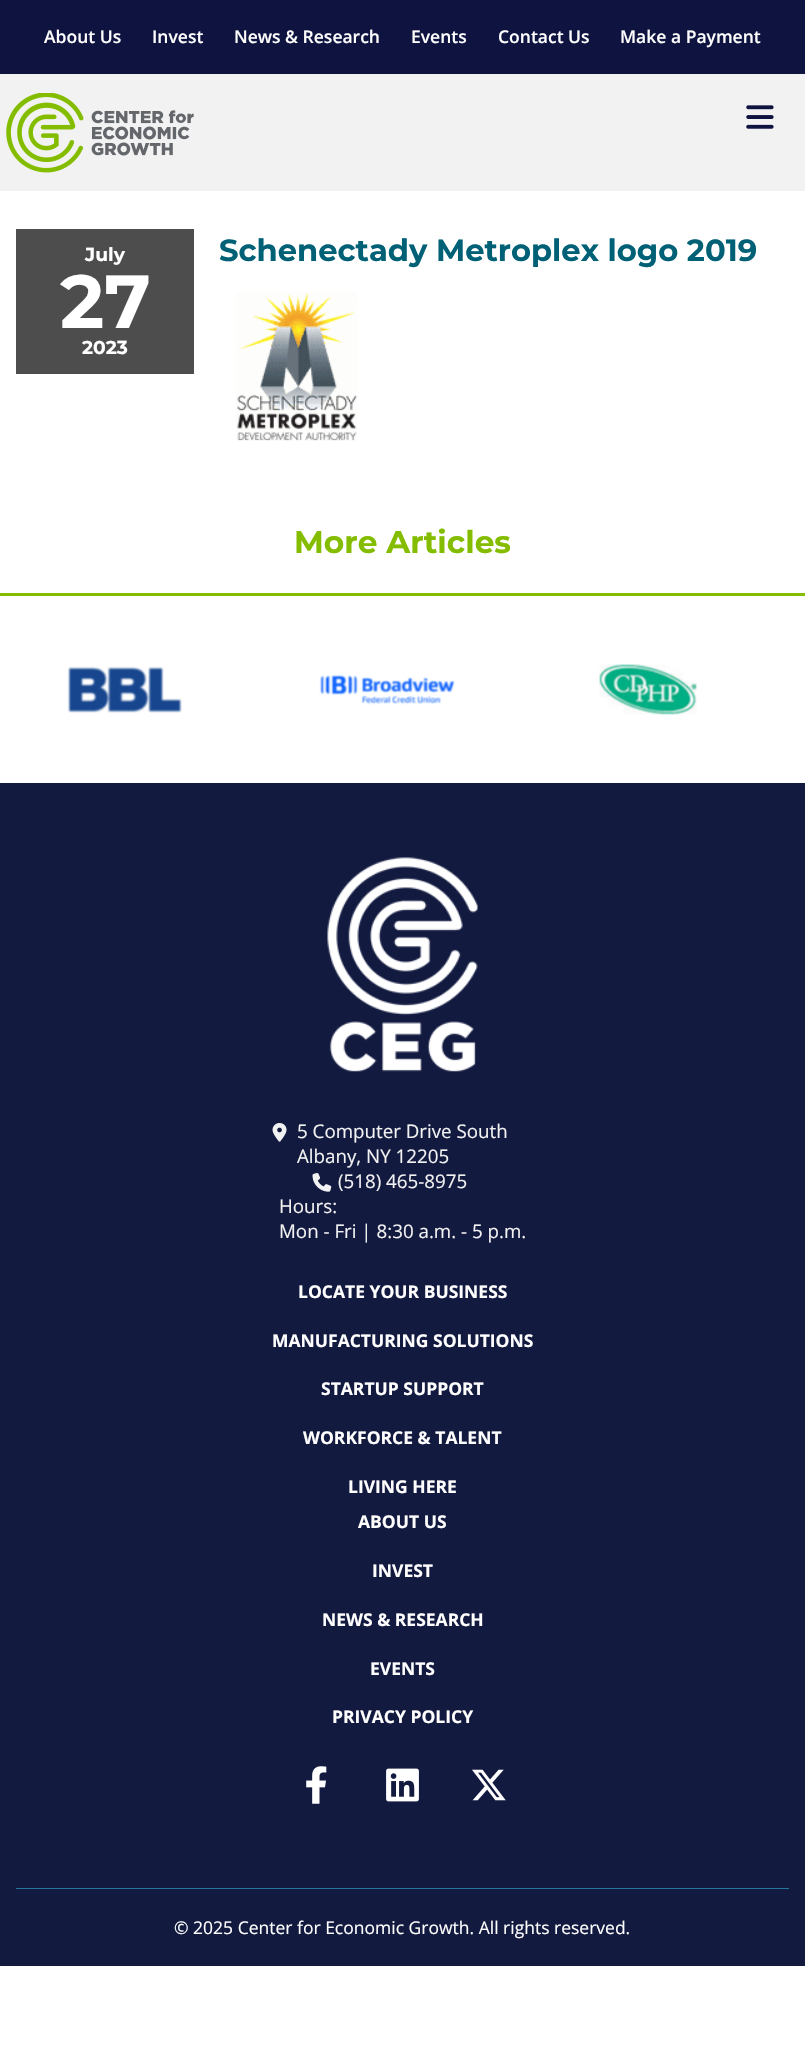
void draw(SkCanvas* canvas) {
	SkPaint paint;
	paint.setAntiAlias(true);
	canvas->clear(0xffffffff);
	paint.setColor(0xfff2f2f2);
	canvas->drawRect(SkRect::MakeXYWH(0, 74, 805, 117), paint);
	paint.setColor(0xff0f1340);
	canvas->drawRect(SkRect::MakeXYWH(0, 0, 805, 74), paint);
	SkFont f1(fontMgr->matchFamilyStyle("Open Sans", SkFontStyle(600, SkFontStyle::kNormal_Width, SkFontStyle::kUpright_Slant)), 17.5);
	f1.setSubpixel(true);
	paint.setColor(0xffffffff);
	canvas->drawString("About Us", 44, 43, f1, paint);
	canvas->drawString("Invest", 152, 43, f1, paint);
	canvas->drawString("News & Research", 234, 43, f1, paint);
	canvas->drawString("Events", 411, 43, f1, paint);
	canvas->drawString("Contact Us", 498, 43, f1, paint);
	canvas->drawString("Make a Payment", 620, 43, f1, paint);
	canvas->drawImageRect(SkImages::DeferredFromEncodedData(SkData::MakeFromFileName("img1.png")), SkRect::MakeXYWH(6, 93, 188, 80), SkSamplingOptions());
	canvas->drawImageRect(SkImages::DeferredFromEncodedData(SkData::MakeFromFileName("img2.png")), SkRect::MakeXYWH(746, 105, 28, 24), SkSamplingOptions());
	paint.setColor(0xff4d4d4d);
	canvas->drawRect(SkRect::MakeXYWH(16, 229, 178, 145), paint);
	SkFont f2(fontMgr->matchFamilyStyle("Montserrat", SkFontStyle::Bold()), 18.75);
	f2.setSubpixel(true);
	paint.setColor(0xffffffff);
	canvas->drawString("July", 85, 261, f2, paint);
	SkFont f3(fontMgr->matchFamilyStyle("Montserrat", SkFontStyle::Bold()), 75);
	f3.setSubpixel(true);
	canvas->drawString("27", 60, 328, f3, paint);
	canvas->drawString("2023", 82, 354, f2, paint);
	SkFont f4(fontMgr->matchFamilyStyle("Montserrat", SkFontStyle::Bold()), 30.6);
	f4.setSubpixel(true);
	paint.setColor(0xff006076);
	canvas->drawString("Schenectady Metroplex logo 2019", 219, 261, f4, paint);
	canvas->drawImageRect(SkImages::DeferredFromEncodedData(SkData::MakeFromFileName("img3.png")), SkRect::MakeXYWH(236, 292, 121, 149), SkSamplingOptions());
	SkFont f5(fontMgr->matchFamilyStyle("Montserrat", SkFontStyle::Bold()), 31.25);
	f5.setSubpixel(true);
	paint.setColor(0xff84bd00);
	canvas->drawString("More Articles", 294, 553, f5, paint);
	canvas->drawRect(SkRect::MakeXYWH(0, 593, 805, 3), paint);
	canvas->drawImageRect(SkImages::DeferredFromEncodedData(SkData::MakeFromFileName("img4.png")), SkRect::MakeXYWH(67, 666, 115, 47), SkSamplingOptions());
	canvas->drawImageRect(SkImages::DeferredFromEncodedData(SkData::MakeFromFileName("img5.png")), SkRect::MakeXYWH(319, 674, 136, 31), SkSamplingOptions());
	canvas->drawImageRect(SkImages::DeferredFromEncodedData(SkData::MakeFromFileName("img6.png")), SkRect::MakeXYWH(599, 664, 98, 51), SkSamplingOptions());
	paint.setColor(0xff131a40);
	canvas->drawRect(SkRect::MakeXYWH(0, 783, 805, 1183), paint);
	canvas->drawImageRect(SkImages::DeferredFromEncodedData(SkData::MakeFromFileName("img7.png")), SkRect::MakeXYWH(327, 857, 151, 215), SkSamplingOptions());
	canvas->drawImageRect(SkImages::DeferredFromEncodedData(SkData::MakeFromFileName("img8.png")), SkRect::MakeXYWH(272, 1123, 15, 19), SkSamplingOptions());
	SkFont f6(fontMgr->matchFamilyStyle("Open Sans", SkFontStyle::Normal()), 18.75);
	f6.setSubpixel(true);
	paint.setColor(0xfff2f2f2);
	canvas->drawString("5 Computer Drive South", 297, 1138, f6, paint);
	canvas->drawString("Albany, NY 12205", 297, 1163, f6, paint);
	canvas->drawImageRect(SkImages::DeferredFromEncodedData(SkData::MakeFromFileName("img9.png")), SkRect::MakeXYWH(312, 1173, 20, 19), SkSamplingOptions());
	canvas->drawString("(518) 465-8975", 338, 1188, f6, paint);
	canvas->drawString("Hours:", 279, 1213, f6, paint);
	canvas->drawString("Mon - Fri | 8:30 a.m. - 5 p.m.", 279, 1238, f6, paint);
	SkFont f7(fontMgr->matchFamilyStyle("Open Sans", SkFontStyle::Bold()), 17.5);
	f7.setSubpixel(true);
	paint.setColor(0xffffffff);
	canvas->drawString("LOCATE YOUR BUSINESS", 298, 1298, f7, paint);
	canvas->drawString("MANUFACTURING SOLUTIONS", 272, 1347, f7, paint);
	canvas->drawString("STARTUP SUPPORT", 321, 1395, f7, paint);
	canvas->drawString("WORKFORCE & TALENT", 303, 1444, f7, paint);
	canvas->drawString("LIVING HERE", 348, 1493, f7, paint);
	canvas->drawString("ABOUT US", 358, 1528, f7, paint);
	canvas->drawString("INVEST", 372, 1577, f7, paint);
	canvas->drawString("NEWS & RESEARCH", 322, 1626, f7, paint);
	canvas->drawString("EVENTS", 370, 1675, f7, paint);
	canvas->drawString("PRIVACY POLICY", 332, 1723, f7, paint);
	canvas->drawImageRect(SkImages::DeferredFromEncodedData(SkData::MakeFromFileName("img10.png")), SkRect::MakeXYWH(306, 1766, 21, 38), SkSamplingOptions());
	canvas->drawImageRect(SkImages::DeferredFromEncodedData(SkData::MakeFromFileName("img11.png")), SkRect::MakeXYWH(386, 1768, 33, 34), SkSamplingOptions());
	canvas->drawImageRect(SkImages::DeferredFromEncodedData(SkData::MakeFromFileName("img12.png")), SkRect::MakeXYWH(472, 1769, 34, 32), SkSamplingOptions());
	paint.setColor(0xff25769a);
	canvas->drawRect(SkRect::MakeXYWH(16, 1888, 773, 1), paint);
	SkFont f8(fontMgr->matchFamilyStyle("Open Sans", SkFontStyle::Normal()), 17.5);
	f8.setSubpixel(true);
	paint.setColor(0xffffffff);
	canvas->drawString("© 2025 Center for Economic Growth. All rights reserved.", 174, 1934, f8, paint);
}
